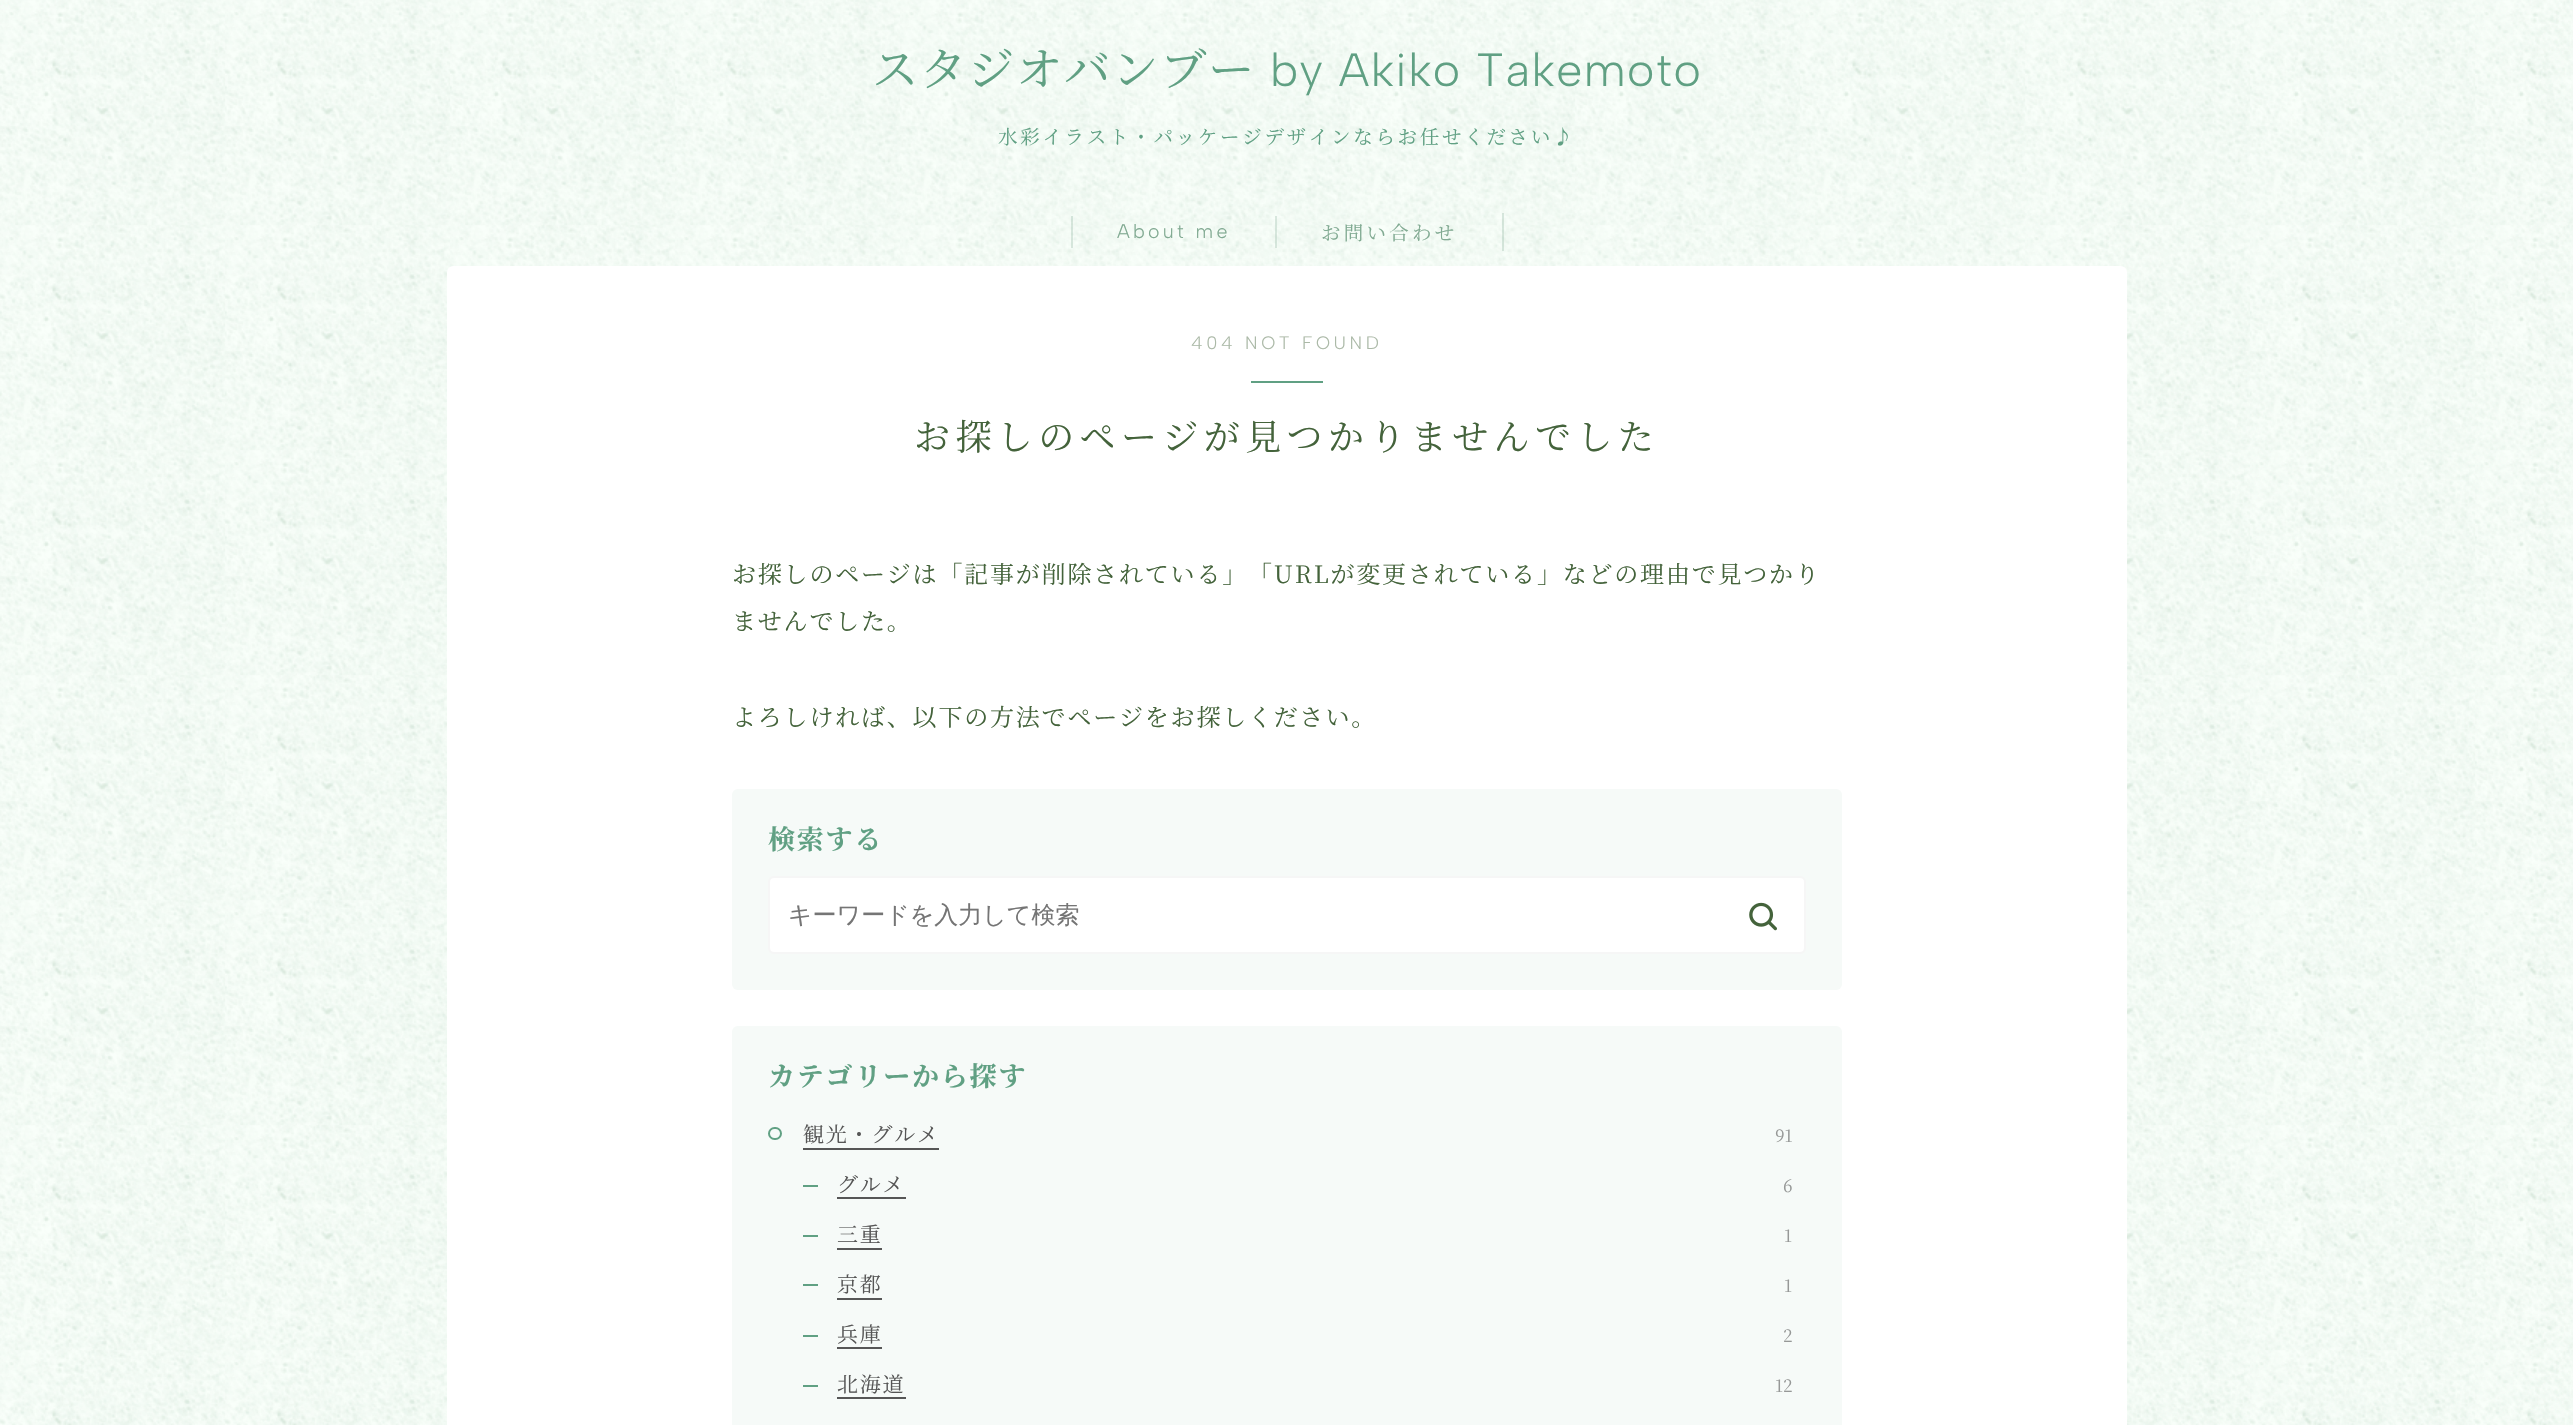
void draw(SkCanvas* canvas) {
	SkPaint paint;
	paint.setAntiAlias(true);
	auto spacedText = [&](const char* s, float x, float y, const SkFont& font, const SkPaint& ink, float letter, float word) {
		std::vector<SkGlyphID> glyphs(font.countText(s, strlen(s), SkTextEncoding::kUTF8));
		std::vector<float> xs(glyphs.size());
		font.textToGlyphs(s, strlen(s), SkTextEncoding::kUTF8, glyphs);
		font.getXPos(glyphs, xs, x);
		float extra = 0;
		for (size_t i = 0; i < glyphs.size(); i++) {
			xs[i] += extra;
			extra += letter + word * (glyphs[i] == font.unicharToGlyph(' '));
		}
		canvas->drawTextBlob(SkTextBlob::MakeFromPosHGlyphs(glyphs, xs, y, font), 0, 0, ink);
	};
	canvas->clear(0xfff9fffa);
	canvas->drawImageRect(SkImages::DeferredFromEncodedData(SkData::MakeFromFileName("img1.png")), SkRect::MakeXYWH(0, 0, 2573, 1425), SkSamplingOptions());
	SkFont f1(fontMgr->matchFamilyStyle("Noto Serif JP", SkFontStyle::Normal()), 46.5);
	f1.setSubpixel(true);
	paint.setColor(0xff60a083);
	spacedText("スタジオバンブー", 872, 86, f1, paint, 1.5, 0);
	SkFont f2(fontMgr->matchFamilyStyle("Albert Sans", SkFontStyle(300, SkFontStyle::kNormal_Width, SkFontStyle::kUpright_Slant)), 46.5);
	f2.setSubpixel(true);
	spacedText("by Akiko Takemoto", 1270, 86, f2, paint, 1.5, 0);
	SkFont f3(fontMgr->matchFamilyStyle("Noto Serif JP", SkFontStyle::Normal()), 19.5);
	f3.setSubpixel(true);
	spacedText("水彩イラスト・パッケージデザインならお任せください♪", 998, 144, f3, paint, 2.7, 0);
	paint.setColor(0x4581aa92);
	canvas->drawRect(SkRect::MakeXYWH(1275, 216, 2, 32), paint);
	canvas->drawRect(SkRect::MakeXYWH(1071, 216, 2, 32), paint);
	SkFont f4(fontMgr->matchFamilyStyle("Albert Sans", SkFontStyle(300, SkFontStyle::kNormal_Width, SkFontStyle::kUpright_Slant)), 19.5);
	f4.setSubpixel(true);
	paint.setColor(0xff81aa92);
	spacedText("About me", 1117, 238, f4, paint, 3.25, 0);
	paint.setColor(0x4581aa92);
	canvas->drawRect(SkRect::MakeXYWH(1502, 213, 2, 38), paint);
	paint.setColor(0xff81aa92);
	spacedText("お問い合わせ", 1321, 240, f3, paint, 3.25, 0);
	paint.setColor(0xffffffff);
	canvas->drawRoundRect(SkRect::MakeXYWH(447, 266, 1680, 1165), 6, 6, paint);
	SkFont f5(fontMgr->matchFamilyStyle("Albert Sans", SkFontStyle(300, SkFontStyle::kNormal_Width, SkFontStyle::kUpright_Slant)), 18);
	f5.setSubpixel(true);
	paint.setColor(0xffabb9a7);
	spacedText("404 NOT FOUND", 1191, 349, f5, paint, 3.6, 0);
	paint.setColor(0xff60a083);
	canvas->drawRect(SkRect::MakeXYWH(1251, 381, 72, 2), paint);
	SkFont f6(fontMgr->matchFamilyStyle("Noto Serif JP", SkFontStyle::Normal()), 36);
	f6.setSubpixel(true);
	paint.setColor(0xff44633b);
	spacedText("お探しのページが見つかりませんでした", 914, 450, f6, paint, 5.4, 0);
	SkFont f7(fontMgr->matchFamilyStyle("Noto Serif JP", SkFontStyle::Normal()), 24);
	f7.setSubpixel(true);
	spacedText("お探しのページは「記事が削除されている」「URLが変更されている」などの理由で見つかり", 732, 583, f7, paint, 1.8, 0);
	spacedText("ませんでした。", 732, 630, f7, paint, 1.8, 0);
	spacedText("よろしければ、以下の方法でページをお探しください。", 732, 726, f7, paint, 1.8, 0);
	paint.setColor(0xfff6faf8);
	canvas->drawRoundRect(SkRect::MakeXYWH(732, 789, 1110, 201), 6, 6, paint);
	SkFont f8(fontMgr->matchFamilyStyle("Noto Serif JP", SkFontStyle::Bold()), 27);
	f8.setSubpixel(true);
	paint.setColor(0xff60a083);
	spacedText("検索する", 768, 849, f8, paint, 1.8, 0);
	paint.setColor(0xffffffff);
	canvas->drawRoundRect(SkRect::MakeXYWH(769, 877, 1036, 76), 5, 5, paint);
	paint.setStroke(true);
	paint.setStrokeWidth(2);
	paint.setColor(0xfff6f6f6);
	canvas->drawRoundRect(SkRect::MakeXYWH(769, 877, 1036, 76), 5, 5, paint);
	SkFont f9(fontMgr->matchFamilyStyle("WenQuanYi Zen Hei", SkFontStyle(500, SkFontStyle::kNormal_Width, SkFontStyle::kUpright_Slant)), 24);
	f9.setSubpixel(true);
	paint.setStroke(false);
	paint.setColor(0xff757575);
	canvas->drawString("キーワードを入力して検索", 788, 923, f9, paint);
	canvas->drawImageRect(SkImages::DeferredFromEncodedData(SkData::MakeFromFileName("img2.png")), SkRect::MakeXYWH(1749, 902, 28, 29), SkSamplingOptions());
	paint.setColor(0xfff6faf8);
	canvas->drawRoundRect(SkRect::MakeXYWH(732, 1026, 1110, 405), 6, 6, paint);
	paint.setColor(0xff60a083);
	spacedText("カテゴリーから探す", 768, 1086, f8, paint, 1.8, 0);
	paint.setStroke(true);
	canvas->drawRoundRect(SkRect::MakeXYWH(769, 1128, 12, 11), 5.5, 5.5, paint);
	SkFont f10(fontMgr->matchFamilyStyle("Noto Serif JP", SkFontStyle::Normal()), 21);
	f10.setSubpixel(true);
	paint.setStroke(false);
	paint.setColor(0xff565656);
	spacedText("観光・グルメ", 803, 1142, f10, paint, 1.8, 0);
	canvas->drawRect(SkRect::MakeXYWH(803, 1148, 136, 2), paint);
	SkFont f11(fontMgr->matchFamilyStyle("Noto Serif JP", SkFontStyle::Normal()), 17);
	f11.setSubpixel(true);
	paint.setColor(0xff969897);
	canvas->drawString("91", 1775, 1142, f11, paint);
	paint.setColor(0xff60a083);
	canvas->drawRect(SkRect::MakeXYWH(803, 1185, 15, 2), paint);
	paint.setColor(0xff565656);
	spacedText("グルメ", 837, 1192, f10, paint, 1.8, 0);
	canvas->drawRect(SkRect::MakeXYWH(837, 1197, 69, 2), paint);
	paint.setColor(0xff969897);
	canvas->drawString("6", 1783, 1192, f11, paint);
	paint.setColor(0xff60a083);
	canvas->drawRect(SkRect::MakeXYWH(803, 1235, 15, 2), paint);
	paint.setColor(0xff565656);
	spacedText("三重", 837, 1242, f10, paint, 1.8, 0);
	canvas->drawRect(SkRect::MakeXYWH(837, 1248, 45, 2), paint);
	paint.setColor(0xff969897);
	canvas->drawString("1", 1784, 1242, f11, paint);
	paint.setColor(0xff60a083);
	canvas->drawRect(SkRect::MakeXYWH(803, 1284, 15, 2), paint);
	paint.setColor(0xff565656);
	spacedText("京都", 837, 1292, f10, paint, 1.8, 0);
	canvas->drawRect(SkRect::MakeXYWH(837, 1298, 45, 2), paint);
	paint.setColor(0xff969897);
	canvas->drawString("1", 1784, 1292, f11, paint);
	paint.setColor(0xff60a083);
	canvas->drawRect(SkRect::MakeXYWH(803, 1335, 15, 2), paint);
	paint.setColor(0xff565656);
	spacedText("兵庫", 837, 1342, f10, paint, 1.8, 0);
	canvas->drawRect(SkRect::MakeXYWH(837, 1347, 45, 2), paint);
	paint.setColor(0xff969897);
	canvas->drawString("2", 1783, 1342, f11, paint);
	paint.setColor(0xff60a083);
	canvas->drawRect(SkRect::MakeXYWH(803, 1385, 15, 2), paint);
	paint.setColor(0xff565656);
	spacedText("北海道", 837, 1392, f10, paint, 1.8, 0);
	canvas->drawRect(SkRect::MakeXYWH(837, 1397, 69, 2), paint);
	paint.setColor(0xff969897);
	canvas->drawString("12", 1775, 1392, f11, paint);
}
